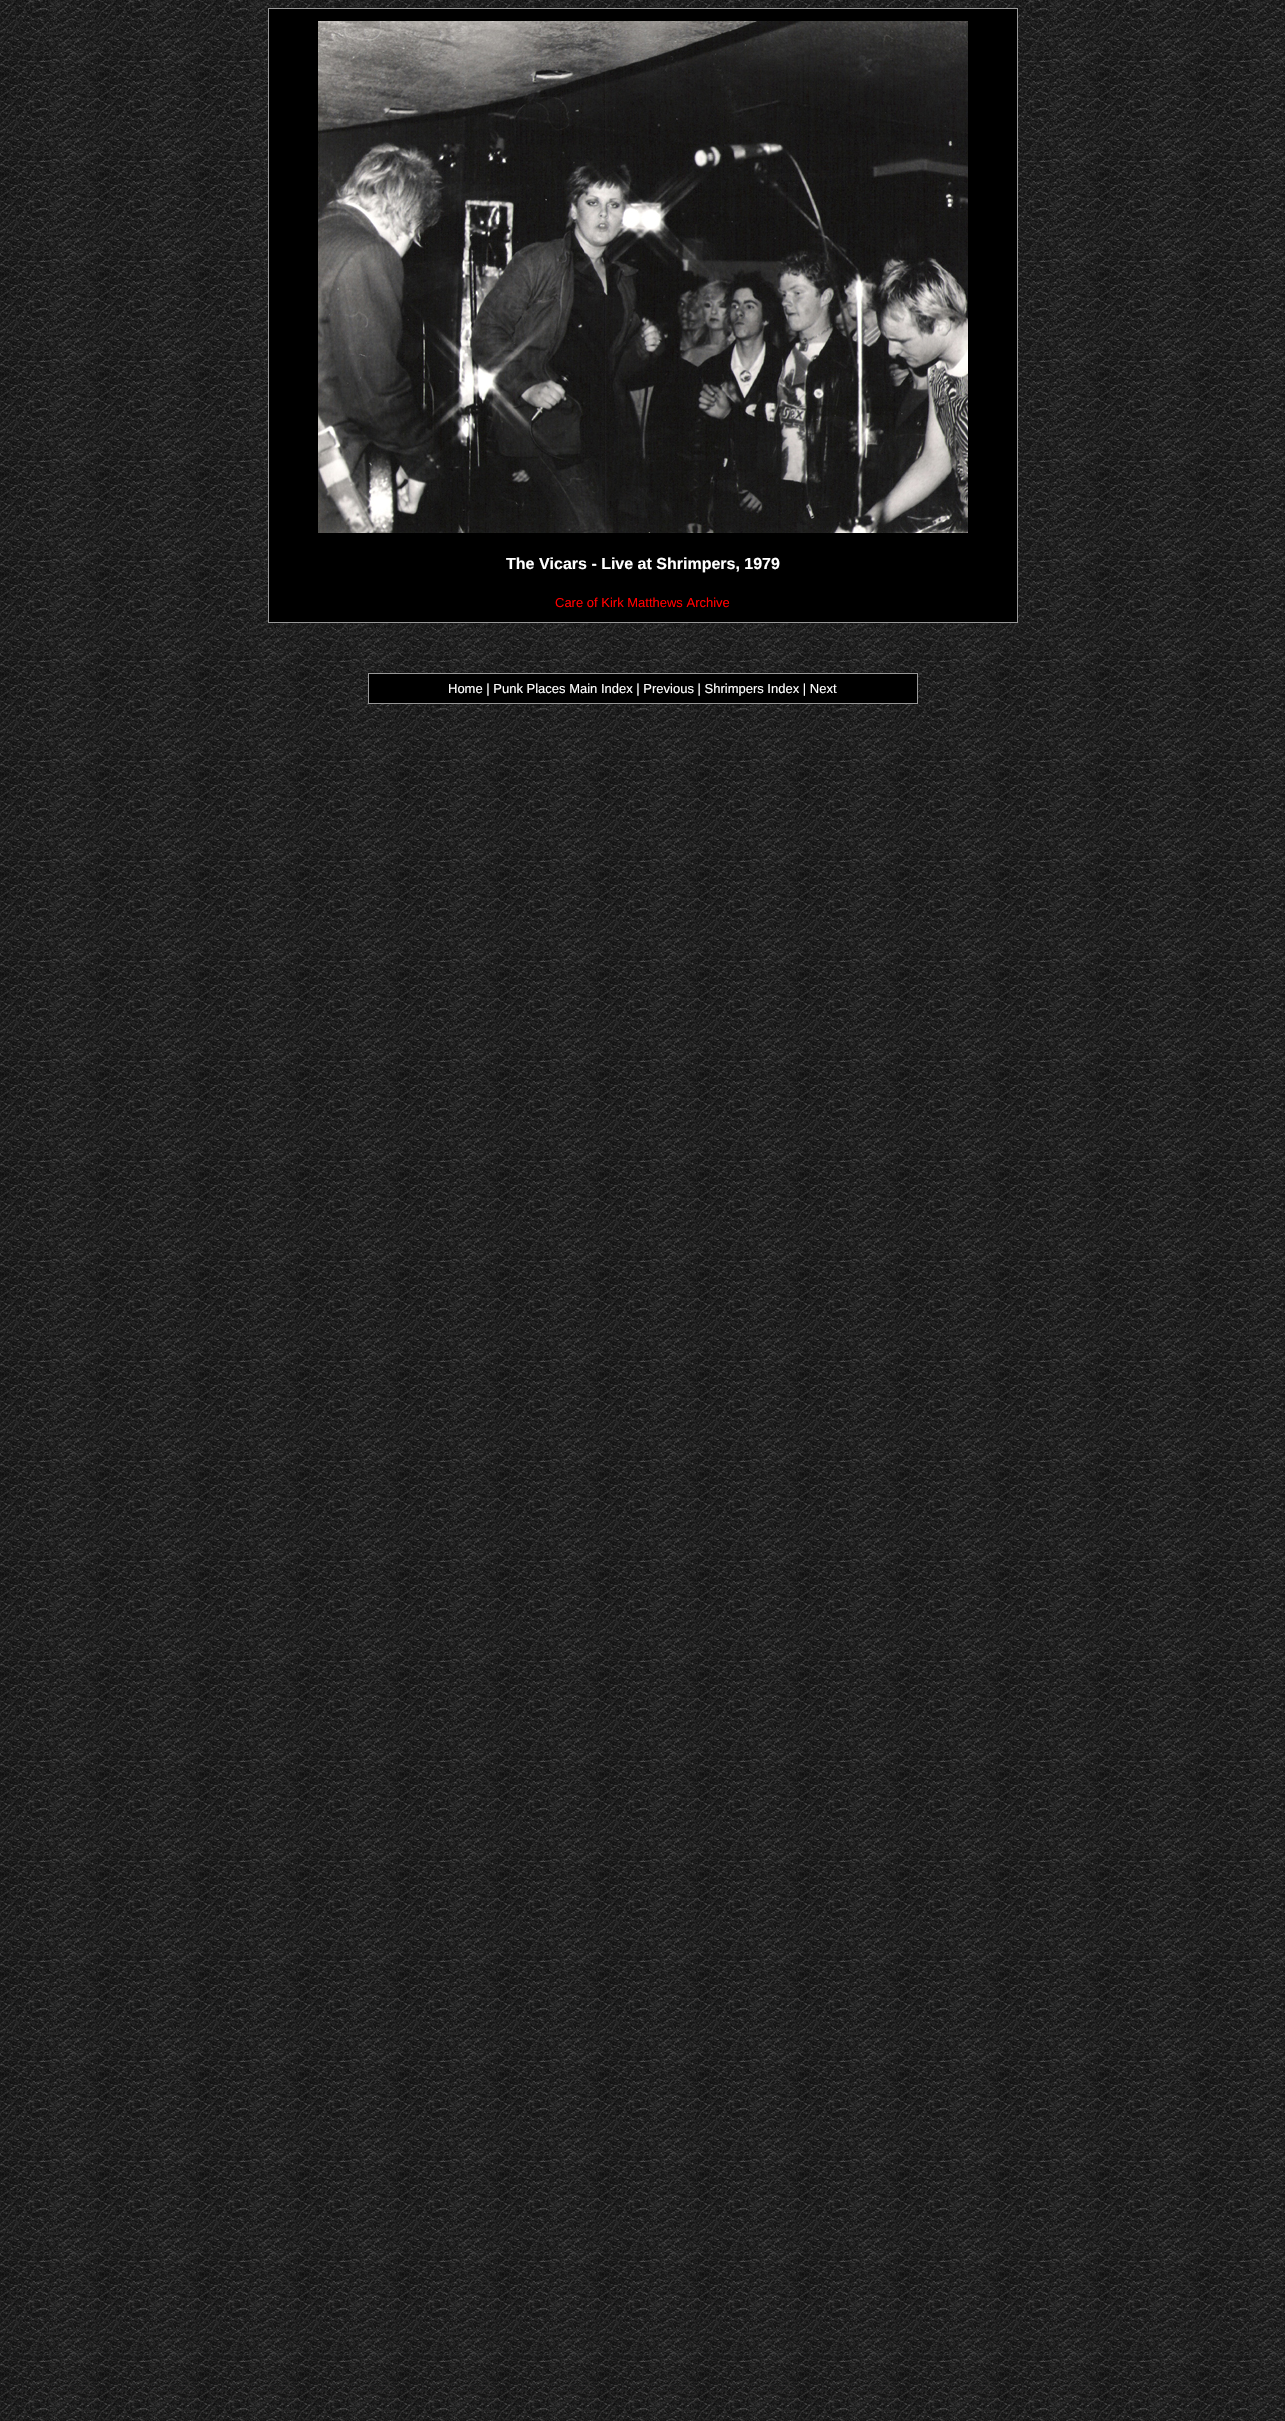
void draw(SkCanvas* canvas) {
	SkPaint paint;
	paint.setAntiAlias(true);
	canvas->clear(0xffffffff);
	canvas->drawImageRect(SkImages::DeferredFromEncodedData(SkData::MakeFromFileName("img1.png")), SkRect::MakeXYWH(0, 0, 1285, 2421), SkSamplingOptions());
	paint.setColor(0xff000000);
	canvas->drawRect(SkRect::MakeXYWH(268.5, 8.5, 749, 614), paint);
	paint.setStroke(true);
	paint.setStrokeWidth(1);
	paint.setColor(0xff999999);
	canvas->drawRect(SkRect::MakeXYWH(268.5, 8.5, 749, 614), paint);
	canvas->drawImageRect(SkImages::DeferredFromEncodedData(SkData::MakeFromFileName("img2.png")), SkRect::MakeXYWH(318, 21, 650, 512), SkSamplingOptions());
	SkFont f1(fontMgr->matchFamilyStyle("Liberation Sans", SkFontStyle::Bold()), 16);
	f1.setSubpixel(true);
	paint.setStroke(false);
	paint.setColor(0xffffffff);
	canvas->drawString("The Vicars - Live at Shrimpers, 1979", 506, 569, f1, paint);
	SkFont f2(fontMgr->matchFamilyStyle("Liberation Sans", SkFontStyle::Normal()), 13);
	f2.setSubpixel(true);
	paint.setColor(0xffff0000);
	canvas->drawString("Care of Kirk Matthews Archive", 555, 607, f2, paint);
	paint.setColor(0xff000000);
	canvas->drawRect(SkRect::MakeXYWH(368.5, 673.5, 549, 30), paint);
	paint.setStroke(true);
	paint.setColor(0xff999999);
	canvas->drawRect(SkRect::MakeXYWH(368.5, 673.5, 549, 30), paint);
	paint.setStroke(false);
	paint.setColor(0xffffffff);
	canvas->drawString("Home | Punk Places Main Index | Previous | Shrimpers Index | Next", 448, 693, f2, paint);
}
